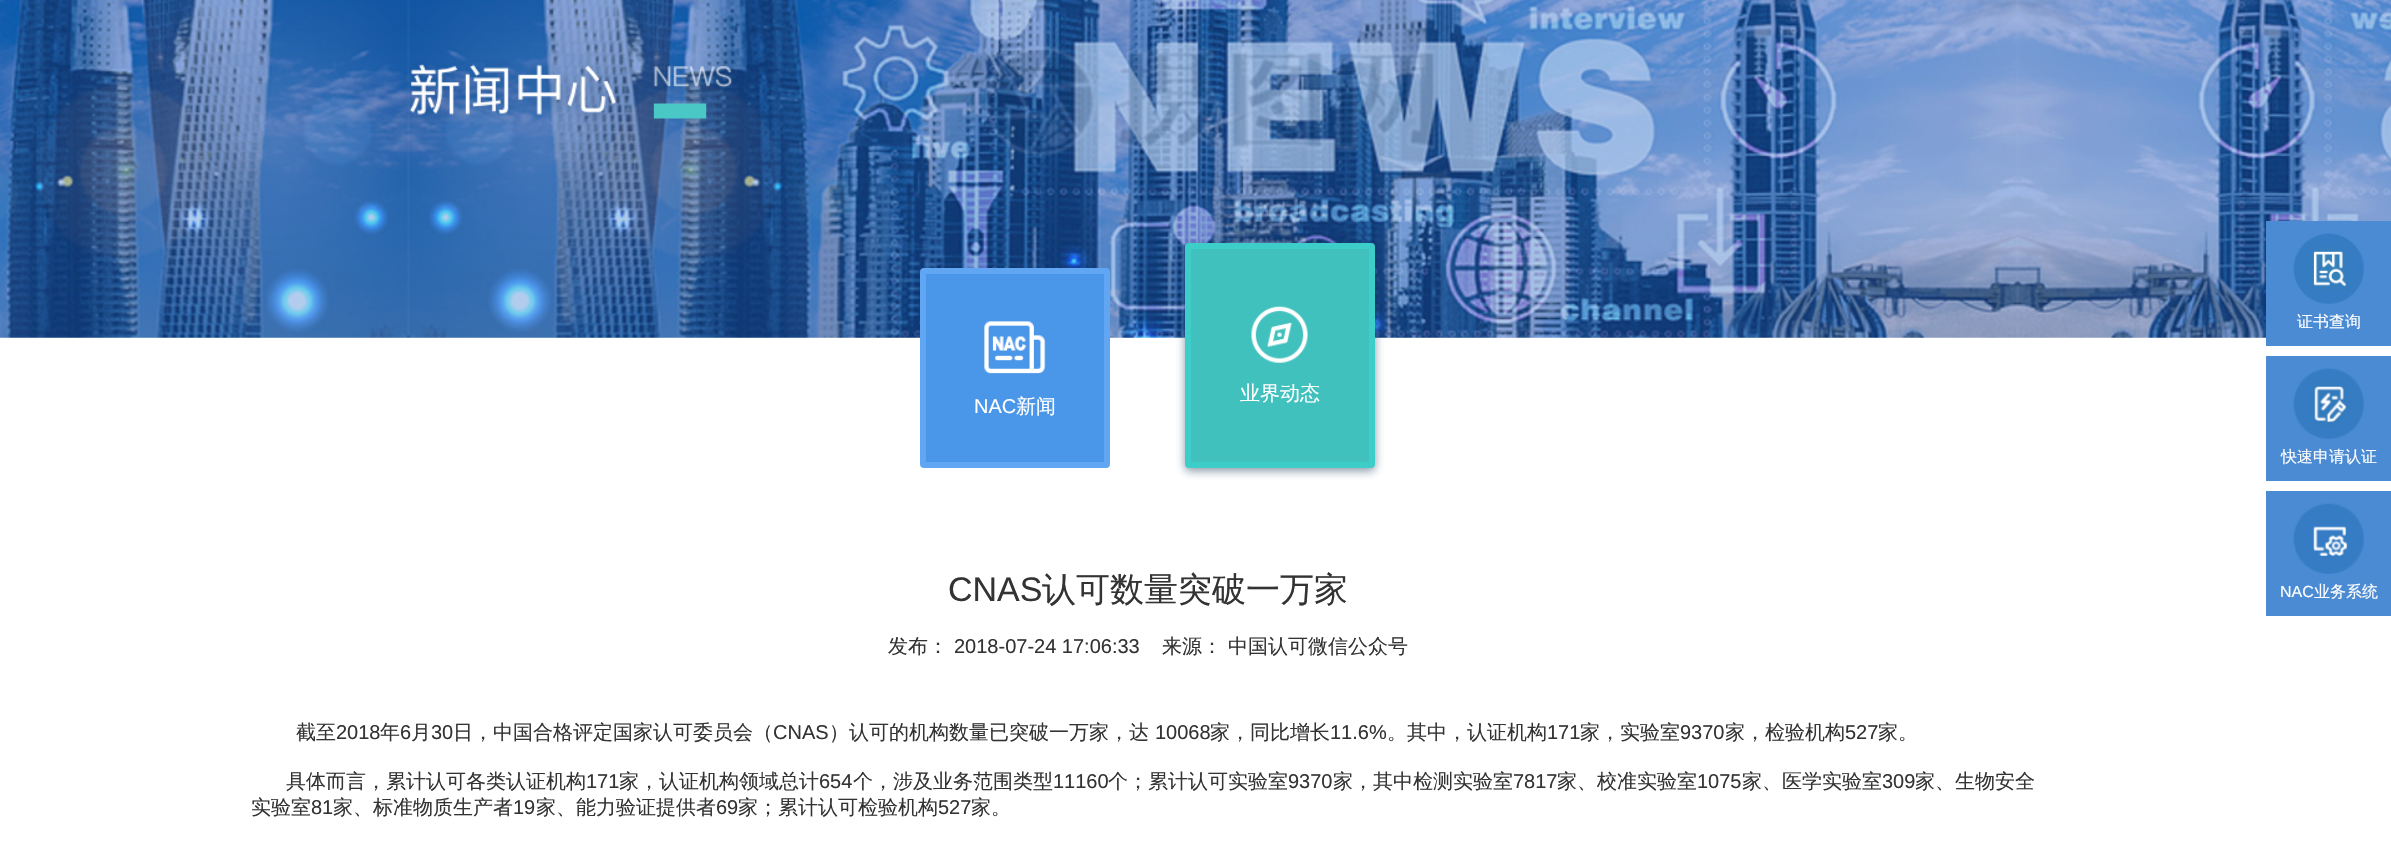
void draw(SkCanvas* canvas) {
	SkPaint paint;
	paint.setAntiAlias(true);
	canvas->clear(0xffffffff);
	canvas->drawImageRect(SkImages::DeferredFromEncodedData(SkData::MakeFromFileName("img1.png")), SkRect::MakeXYWH(0, 0, 2391, 338), SkSamplingOptions());
	paint.setColor(0x800b2f50);
	paint.setMaskFilter(SkMaskFilter::MakeBlur(kNormal_SkBlurStyle, 5));
	canvas->drawRoundRect(SkRect::MakeXYWH(1185, 246, 190, 225), 4, 4, paint);
	paint.setMaskFilter(nullptr);
	paint.setColor(0xff40c1bd);
	canvas->drawRoundRect(SkRect::MakeXYWH(1188, 246, 184, 219), 1, 1, paint);
	paint.setStroke(true);
	paint.setStrokeWidth(6);
	paint.setColor(0xff3dcec9);
	canvas->drawRoundRect(SkRect::MakeXYWH(1188, 246, 184, 219), 1, 1, paint);
	canvas->drawImageRect(SkImages::DeferredFromEncodedData(SkData::MakeFromFileName("img2.png")), SkRect::MakeXYWH(1251, 306, 57, 57), SkSamplingOptions());
	SkFont f1(fontMgr->matchFamilyStyle("WenQuanYi Zen Hei", SkFontStyle(500, SkFontStyle::kNormal_Width, SkFontStyle::kUpright_Slant)), 20);
	f1.setSubpixel(true);
	paint.setStroke(false);
	paint.setColor(0xffffffff);
	canvas->drawString("业界动态", 1240, 400, f1, paint);
	paint.setColor(0xff4a96e9);
	canvas->drawRoundRect(SkRect::MakeXYWH(923, 271, 184, 194), 1, 1, paint);
	paint.setStroke(true);
	paint.setColor(0xff61a6f2);
	canvas->drawRoundRect(SkRect::MakeXYWH(923, 271, 184, 194), 1, 1, paint);
	canvas->drawImageRect(SkImages::DeferredFromEncodedData(SkData::MakeFromFileName("img3.png")), SkRect::MakeXYWH(984, 321, 62, 53), SkSamplingOptions());
	SkFont f2(fontMgr->matchFamilyStyle("Liberation Sans", SkFontStyle::Normal()), 20);
	f2.setSubpixel(true);
	paint.setStroke(false);
	paint.setColor(0xffffffff);
	canvas->drawString("NAC", 974, 413, f2, paint);
	canvas->drawString("新闻", 1016, 413, f1, paint);
	paint.setColor(0xff4a8bd3);
	canvas->drawRect(SkRect::MakeXYWH(2266, 221, 125, 125), paint);
	canvas->drawImageRect(SkImages::DeferredFromEncodedData(SkData::MakeFromFileName("img4.png")), SkRect::MakeXYWH(2293, 233, 71, 71), SkSamplingOptions());
	SkFont f3(fontMgr->matchFamilyStyle("WenQuanYi Zen Hei", SkFontStyle(500, SkFontStyle::kNormal_Width, SkFontStyle::kUpright_Slant)), 16);
	f3.setSubpixel(true);
	paint.setColor(0xffffffff);
	canvas->drawString("证书查询", 2297, 327, f3, paint);
	paint.setColor(0xff4a8bd3);
	canvas->drawRect(SkRect::MakeXYWH(2266, 356, 125, 125), paint);
	canvas->drawImageRect(SkImages::DeferredFromEncodedData(SkData::MakeFromFileName("img5.png")), SkRect::MakeXYWH(2293, 368, 71, 71), SkSamplingOptions());
	paint.setColor(0xffffffff);
	canvas->drawString("快速申请认证", 2281, 462, f3, paint);
	paint.setColor(0xff4a8bd3);
	canvas->drawRect(SkRect::MakeXYWH(2266, 491, 125, 125), paint);
	canvas->drawImageRect(SkImages::DeferredFromEncodedData(SkData::MakeFromFileName("img6.png")), SkRect::MakeXYWH(2293, 503, 71, 71), SkSamplingOptions());
	SkFont f4(fontMgr->matchFamilyStyle("Liberation Sans", SkFontStyle::Normal()), 16);
	f4.setSubpixel(true);
	paint.setColor(0xffffffff);
	canvas->drawString("NAC", 2280, 597, f4, paint);
	canvas->drawString("业务系统", 2314, 597, f3, paint);
	SkFont f5(fontMgr->matchFamilyStyle("Liberation Sans", SkFontStyle::Normal()), 34);
	f5.setSubpixel(true);
	paint.setColor(0xff333333);
	canvas->drawString("CNAS", 948, 601, f5, paint);
	SkFont f6(fontMgr->matchFamilyStyle("WenQuanYi Zen Hei", SkFontStyle(500, SkFontStyle::kNormal_Width, SkFontStyle::kUpright_Slant)), 34);
	f6.setSubpixel(true);
	canvas->drawString("认可数量突破一万家", 1042, 601, f6, paint);
	canvas->drawString("发布：", 888, 653, f1, paint);
	canvas->drawString("2018-07-24 17:06:33", 954, 653, f2, paint);
	canvas->drawString("来源： 中国认可微信公众号", 1162, 653, f1, paint);
	canvas->drawString("截至", 296, 739, f1, paint);
	canvas->drawString("2018", 336, 739, f2, paint);
	canvas->drawString("年", 380, 739, f1, paint);
	canvas->drawString("6", 400, 739, f2, paint);
	canvas->drawString("月", 411, 739, f1, paint);
	canvas->drawString("30", 431, 739, f2, paint);
	canvas->drawString("日，中国合格评定国家认可委员会（", 453, 739, f1, paint);
	canvas->drawString("CNAS", 773, 739, f2, paint);
	canvas->drawString("）认可的机构数量已突破一万家，达", 829, 739, f1, paint);
	canvas->drawString("10068", 1155, 739, f2, paint);
	canvas->drawString("家，同比增长", 1210, 739, f1, paint);
	canvas->drawString("11.6%", 1330, 739, f2, paint);
	canvas->drawString("。其中，认证机构", 1387, 739, f1, paint);
	canvas->drawString("171", 1547, 739, f2, paint);
	canvas->drawString("家，实验室", 1580, 739, f1, paint);
	canvas->drawString("9370", 1680, 739, f2, paint);
	canvas->drawString("家，检验机构", 1725, 739, f1, paint);
	canvas->drawString("527", 1845, 739, f2, paint);
	canvas->drawString("家。", 1878, 739, f1, paint);
	canvas->drawString("具体而言，累计认可各类认证机构", 286, 788, f1, paint);
	canvas->drawString("171", 586, 788, f2, paint);
	canvas->drawString("家，认证机构领域总计", 619, 788, f1, paint);
	canvas->drawString("654", 819, 788, f2, paint);
	canvas->drawString("个，涉及业务范围类型", 853, 788, f1, paint);
	canvas->drawString("11160", 1053, 788, f2, paint);
	canvas->drawString("个；累计认可实验室", 1108, 788, f1, paint);
	canvas->drawString("9370", 1288, 788, f2, paint);
	canvas->drawString("家，其中检测实验室", 1333, 788, f1, paint);
	canvas->drawString("7817", 1513, 788, f2, paint);
	canvas->drawString("家、校准实验室", 1557, 788, f1, paint);
	canvas->drawString("1075", 1697, 788, f2, paint);
	canvas->drawString("家、医学实验室", 1742, 788, f1, paint);
	canvas->drawString("309", 1882, 788, f2, paint);
	canvas->drawString("家、生物安全", 1915, 788, f1, paint);
	canvas->drawString("实验室", 251, 814, f1, paint);
	canvas->drawString("81", 311, 814, f2, paint);
	canvas->drawString("家、标准物质生产者", 333, 814, f1, paint);
	canvas->drawString("19", 513, 814, f2, paint);
	canvas->drawString("家、能力验证提供者", 536, 814, f1, paint);
	canvas->drawString("69", 716, 814, f2, paint);
	canvas->drawString("家；累计认可检验机构", 738, 814, f1, paint);
	canvas->drawString("527", 938, 814, f2, paint);
	canvas->drawString("家。", 971, 814, f1, paint);
}
